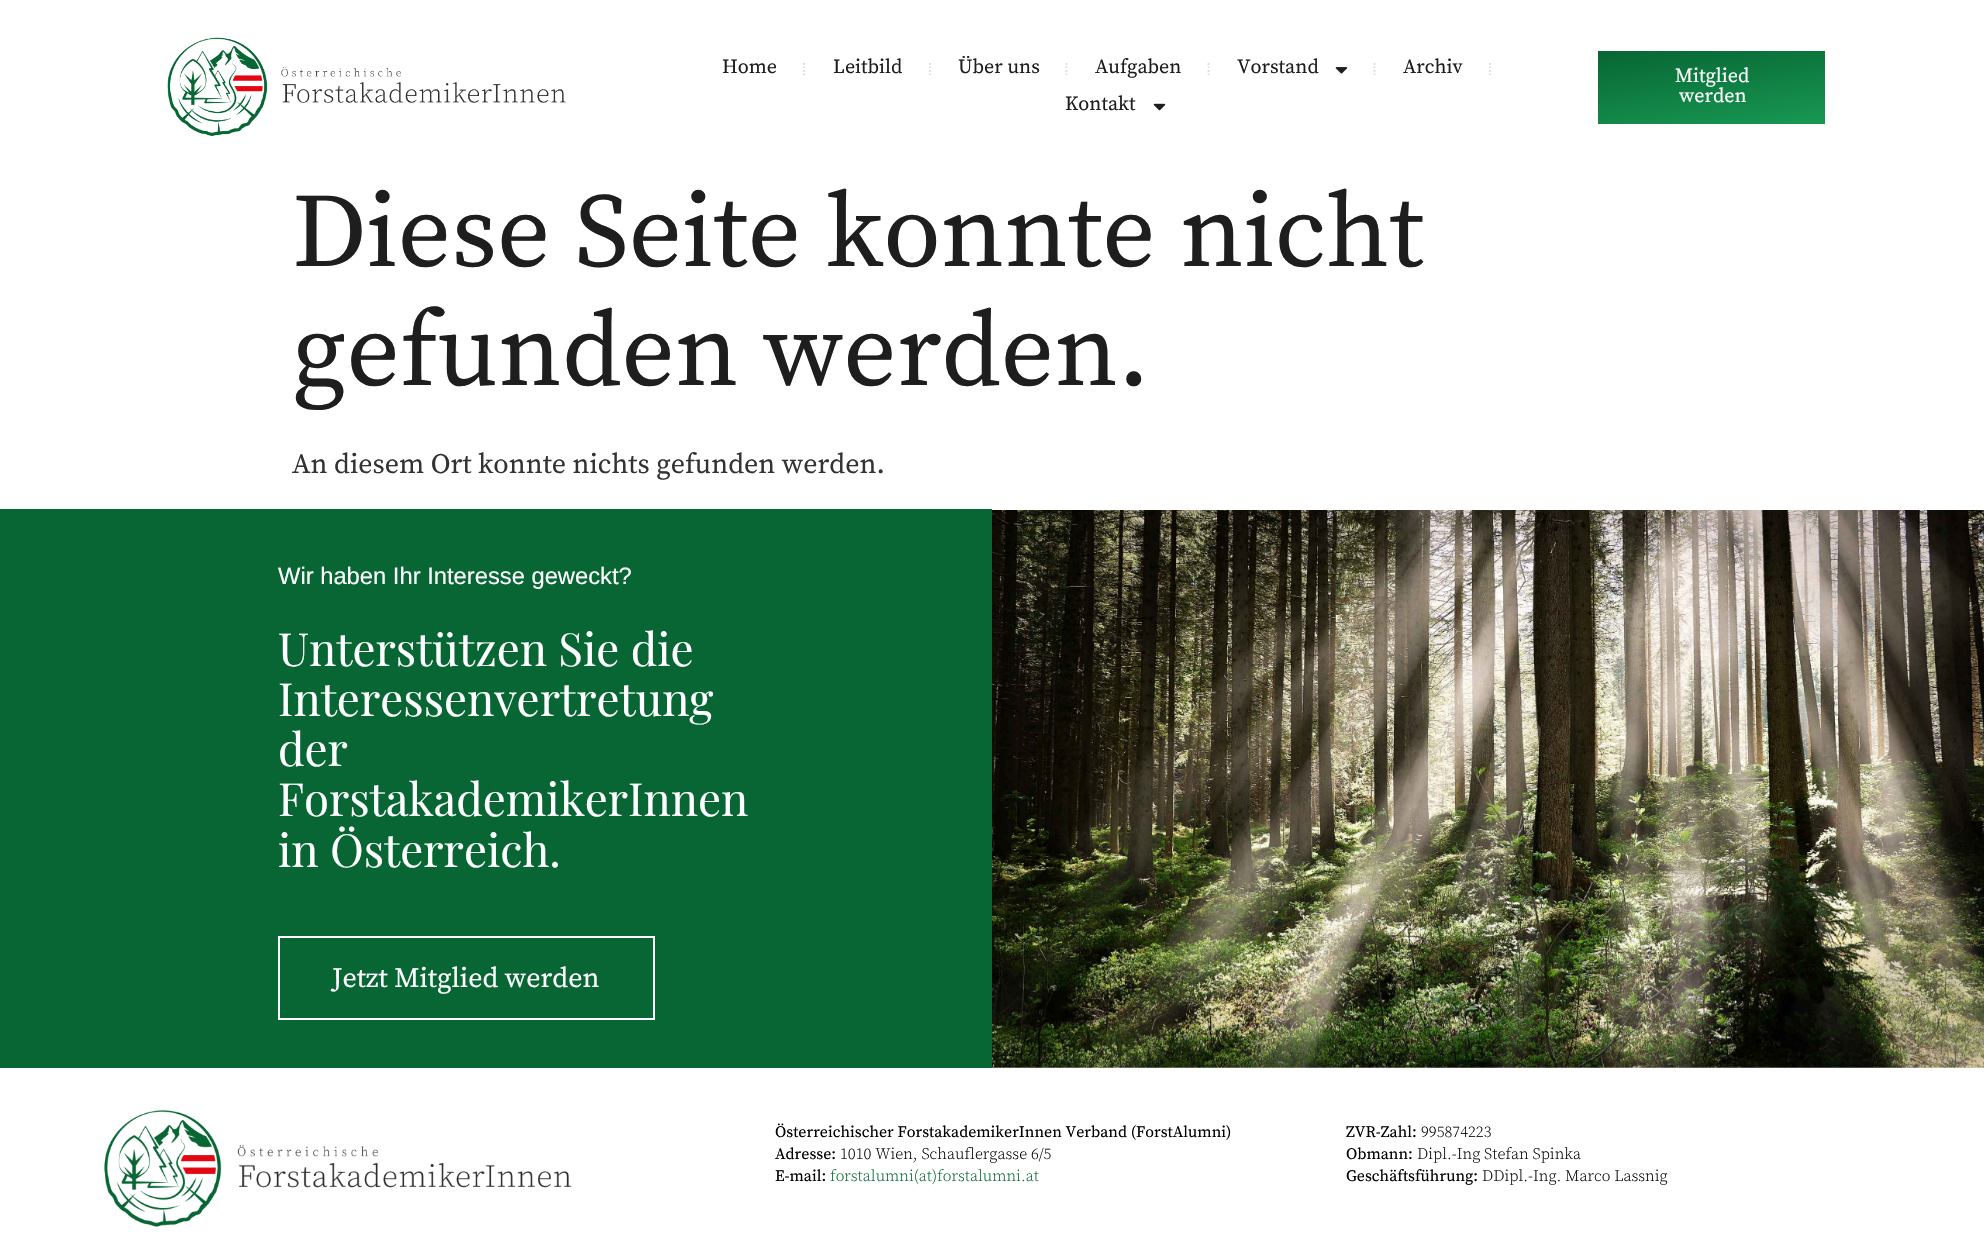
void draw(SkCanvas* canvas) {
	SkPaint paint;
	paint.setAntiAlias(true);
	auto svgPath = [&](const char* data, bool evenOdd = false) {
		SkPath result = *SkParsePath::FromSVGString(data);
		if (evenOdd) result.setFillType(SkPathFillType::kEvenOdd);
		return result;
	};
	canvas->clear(0xffffffff);
	canvas->drawImageRect(SkImages::DeferredFromEncodedData(SkData::MakeFromFileName("img1.png")), SkRect::MakeXYWH(167, 37, 399, 99), SkSamplingOptions());
	SkFont f1(fontMgr->matchFamilyStyle("Source Serif Pro", SkFontStyle::Normal()), 20);
	f1.setSubpixel(true);
	paint.setColor(0xff1e1e1e);
	canvas->drawString("Home", 722, 73, f1, paint);
	paint.setStroke(true);
	paint.setStrokeWidth(1.8);
	paint.setColor(0xffd0e2d8);
	canvas->drawPath(svgPath("M804 63V65M804 66.5V68M804 70V72M804 73.5V75"), paint);
	paint.setStroke(false);
	paint.setColor(0xff1e1e1e);
	canvas->drawString("Leitbild", 833, 73, f1, paint);
	paint.setStroke(true);
	paint.setColor(0xffd0e2d8);
	canvas->drawPath(svgPath("M930 63V65M930 66.5V68M930 70V72M930 73.5V75"), paint);
	paint.setStroke(false);
	paint.setColor(0xff1e1e1e);
	canvas->drawString("Über uns", 958, 73, f1, paint);
	paint.setStroke(true);
	paint.setColor(0xffd0e2d8);
	canvas->drawPath(svgPath("M1066.5 63V65M1066.5 66.5V68M1066.5 70V72M1066.5 73.5V75"), paint);
	paint.setStroke(false);
	paint.setColor(0xff1e1e1e);
	canvas->drawString("Aufgaben", 1095, 73, f1, paint);
	paint.setStroke(true);
	paint.setColor(0xffd0e2d8);
	canvas->drawPath(svgPath("M1208.5 63V65M1208.5 66.5V68M1208.5 70V72M1208.5 73.5V75"), paint);
	paint.setStroke(false);
	paint.setColor(0xff1e1e1e);
	canvas->drawString("Vorstand", 1237, 73, f1, paint);
	canvas->drawImageRect(SkImages::DeferredFromEncodedData(SkData::MakeFromFileName("img2.png")), SkRect::MakeXYWH(1335, 67, 13, 7), SkSamplingOptions());
	paint.setStroke(true);
	paint.setColor(0xffd0e2d8);
	canvas->drawPath(svgPath("M1374.5 63V65M1374.5 66.5V68M1374.5 70V72M1374.5 73.5V75"), paint);
	paint.setStroke(false);
	paint.setColor(0xff1e1e1e);
	canvas->drawString("Archiv", 1403, 73, f1, paint);
	paint.setStroke(true);
	paint.setColor(0xffd0e2d8);
	canvas->drawPath(svgPath("M1490 63V65M1490 66.5V68M1490 70V72M1490 73.5V75"), paint);
	paint.setStroke(false);
	paint.setColor(0xff1e1e1e);
	canvas->drawString("Kontakt", 1065, 110, f1, paint);
	canvas->drawImageRect(SkImages::DeferredFromEncodedData(SkData::MakeFromFileName("img3.png")), SkRect::MakeXYWH(1153, 103, 13, 8), SkSamplingOptions());
	{
		const SkColor colors[] = {0xff076633, 0xff189853};
		const float stops[] = {0, 1};
		const SkPoint ends[] = {{1704, 36}, {1719, 139}};
		paint.setShader(SkGradientShader::MakeLinear(ends, colors, stops, 2, SkTileMode::kClamp));
		paint.setAlpha(255);
	}
	canvas->drawRect(SkRect::MakeXYWH(1598, 51, 227, 73), paint);
	paint.setShader(nullptr);
	paint.setColor(0xffffffff);
	canvas->drawString("Mitglied", 1675, 82, f1, paint);
	canvas->drawString("werden", 1679, 102, f1, paint);
	SkFont f2(fontMgr->matchFamilyStyle("Source Serif Pro", SkFontStyle::Normal()), 105);
	f2.setSubpixel(true);
	paint.setColor(0xff1e1e1e);
	canvas->drawString("Diese Seite konnte nicht", 292, 266, f2, paint);
	canvas->drawString("gefunden werden.", 292, 385, f2, paint);
	SkFont f3(fontMgr->matchFamilyStyle("Source Serif Pro", SkFontStyle::Normal()), 28);
	f3.setSubpixel(true);
	paint.setColor(0xff333333);
	canvas->drawString("An diesem Ort konnte nichts gefunden werden.", 292, 473, f3, paint);
	paint.setColor(0xff076633);
	canvas->drawRect(SkRect::MakeXYWH(0, 509, 992, 559), paint);
	SkFont f4(fontMgr->matchFamilyStyle("Liberation Sans", SkFontStyle::Normal()), 23.75);
	f4.setSubpixel(true);
	paint.setColor(0xffffffff);
	canvas->drawString("Wir haben Ihr Interesse geweckt?", 278, 584, f4, paint);
	SkFont f5(fontMgr->matchFamilyStyle("Playfair Display", SkFontStyle::Normal()), 45.6);
	f5.setSubpixel(true);
	canvas->drawString("Unterstützen Sie die", 278, 666, f5, paint);
	canvas->drawString("Interessenvertretung", 278, 716, f5, paint);
	canvas->drawString("der", 278, 766, f5, paint);
	canvas->drawString("ForstakademikerInnen", 278, 816, f5, paint);
	canvas->drawString("in Österreich.", 278, 867, f5, paint);
	paint.setStroke(true);
	paint.setStrokeWidth(2);
	canvas->drawRect(SkRect::MakeXYWH(279, 937, 375, 82), paint);
	paint.setStroke(false);
	canvas->drawString("Jetzt Mitglied werden", 332, 987, f3, paint);
	canvas->drawImageRect(SkImages::DeferredFromEncodedData(SkData::MakeFromFileName("img4.png")), SkRect::MakeXYWH(992, 510, 992, 558), SkSamplingOptions());
	canvas->drawImageRect(SkImages::DeferredFromEncodedData(SkData::MakeFromFileName("img5.png")), SkRect::MakeXYWH(104, 1110, 468, 117), SkSamplingOptions());
	SkFont f6(fontMgr->matchFamilyStyle("Source Serif Pro", SkFontStyle::Normal()), 15.9);
	f6.setSubpixel(true);
	paint.setColor(0xff000000);
	canvas->drawString("Österreichischer ForstakademikerInnen Verband (ForstAlumni)", 775, 1137, f6, paint);
	canvas->drawString("Adresse:", 775, 1159, f6, paint);
	SkFont f7(fontMgr->matchFamilyStyle("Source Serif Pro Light", SkFontStyle(300, SkFontStyle::kNormal_Width, SkFontStyle::kUpright_Slant)), 15.9);
	f7.setSubpixel(true);
	canvas->drawString("1010 Wien, Schauflergasse 6/5", 840, 1159, f7, paint);
	canvas->drawString("E-mail:", 775, 1181, f6, paint);
	paint.setColor(0xff076633);
	canvas->drawString("forstalumni(at)forstalumni.at", 830, 1181, f7, paint);
	paint.setColor(0xff000000);
	canvas->drawString("ZVR-Zahl:", 1346, 1137, f6, paint);
	canvas->drawString("995874223", 1421, 1137, f7, paint);
	canvas->drawString("Obmann:", 1346, 1159, f6, paint);
	canvas->drawString("Dipl.-Ing Stefan Spinka", 1417, 1159, f7, paint);
	canvas->drawString("Geschäftsführung:", 1346, 1181, f6, paint);
	canvas->drawString("DDipl.-Ing. Marco Lassnig", 1482, 1181, f7, paint);
}
